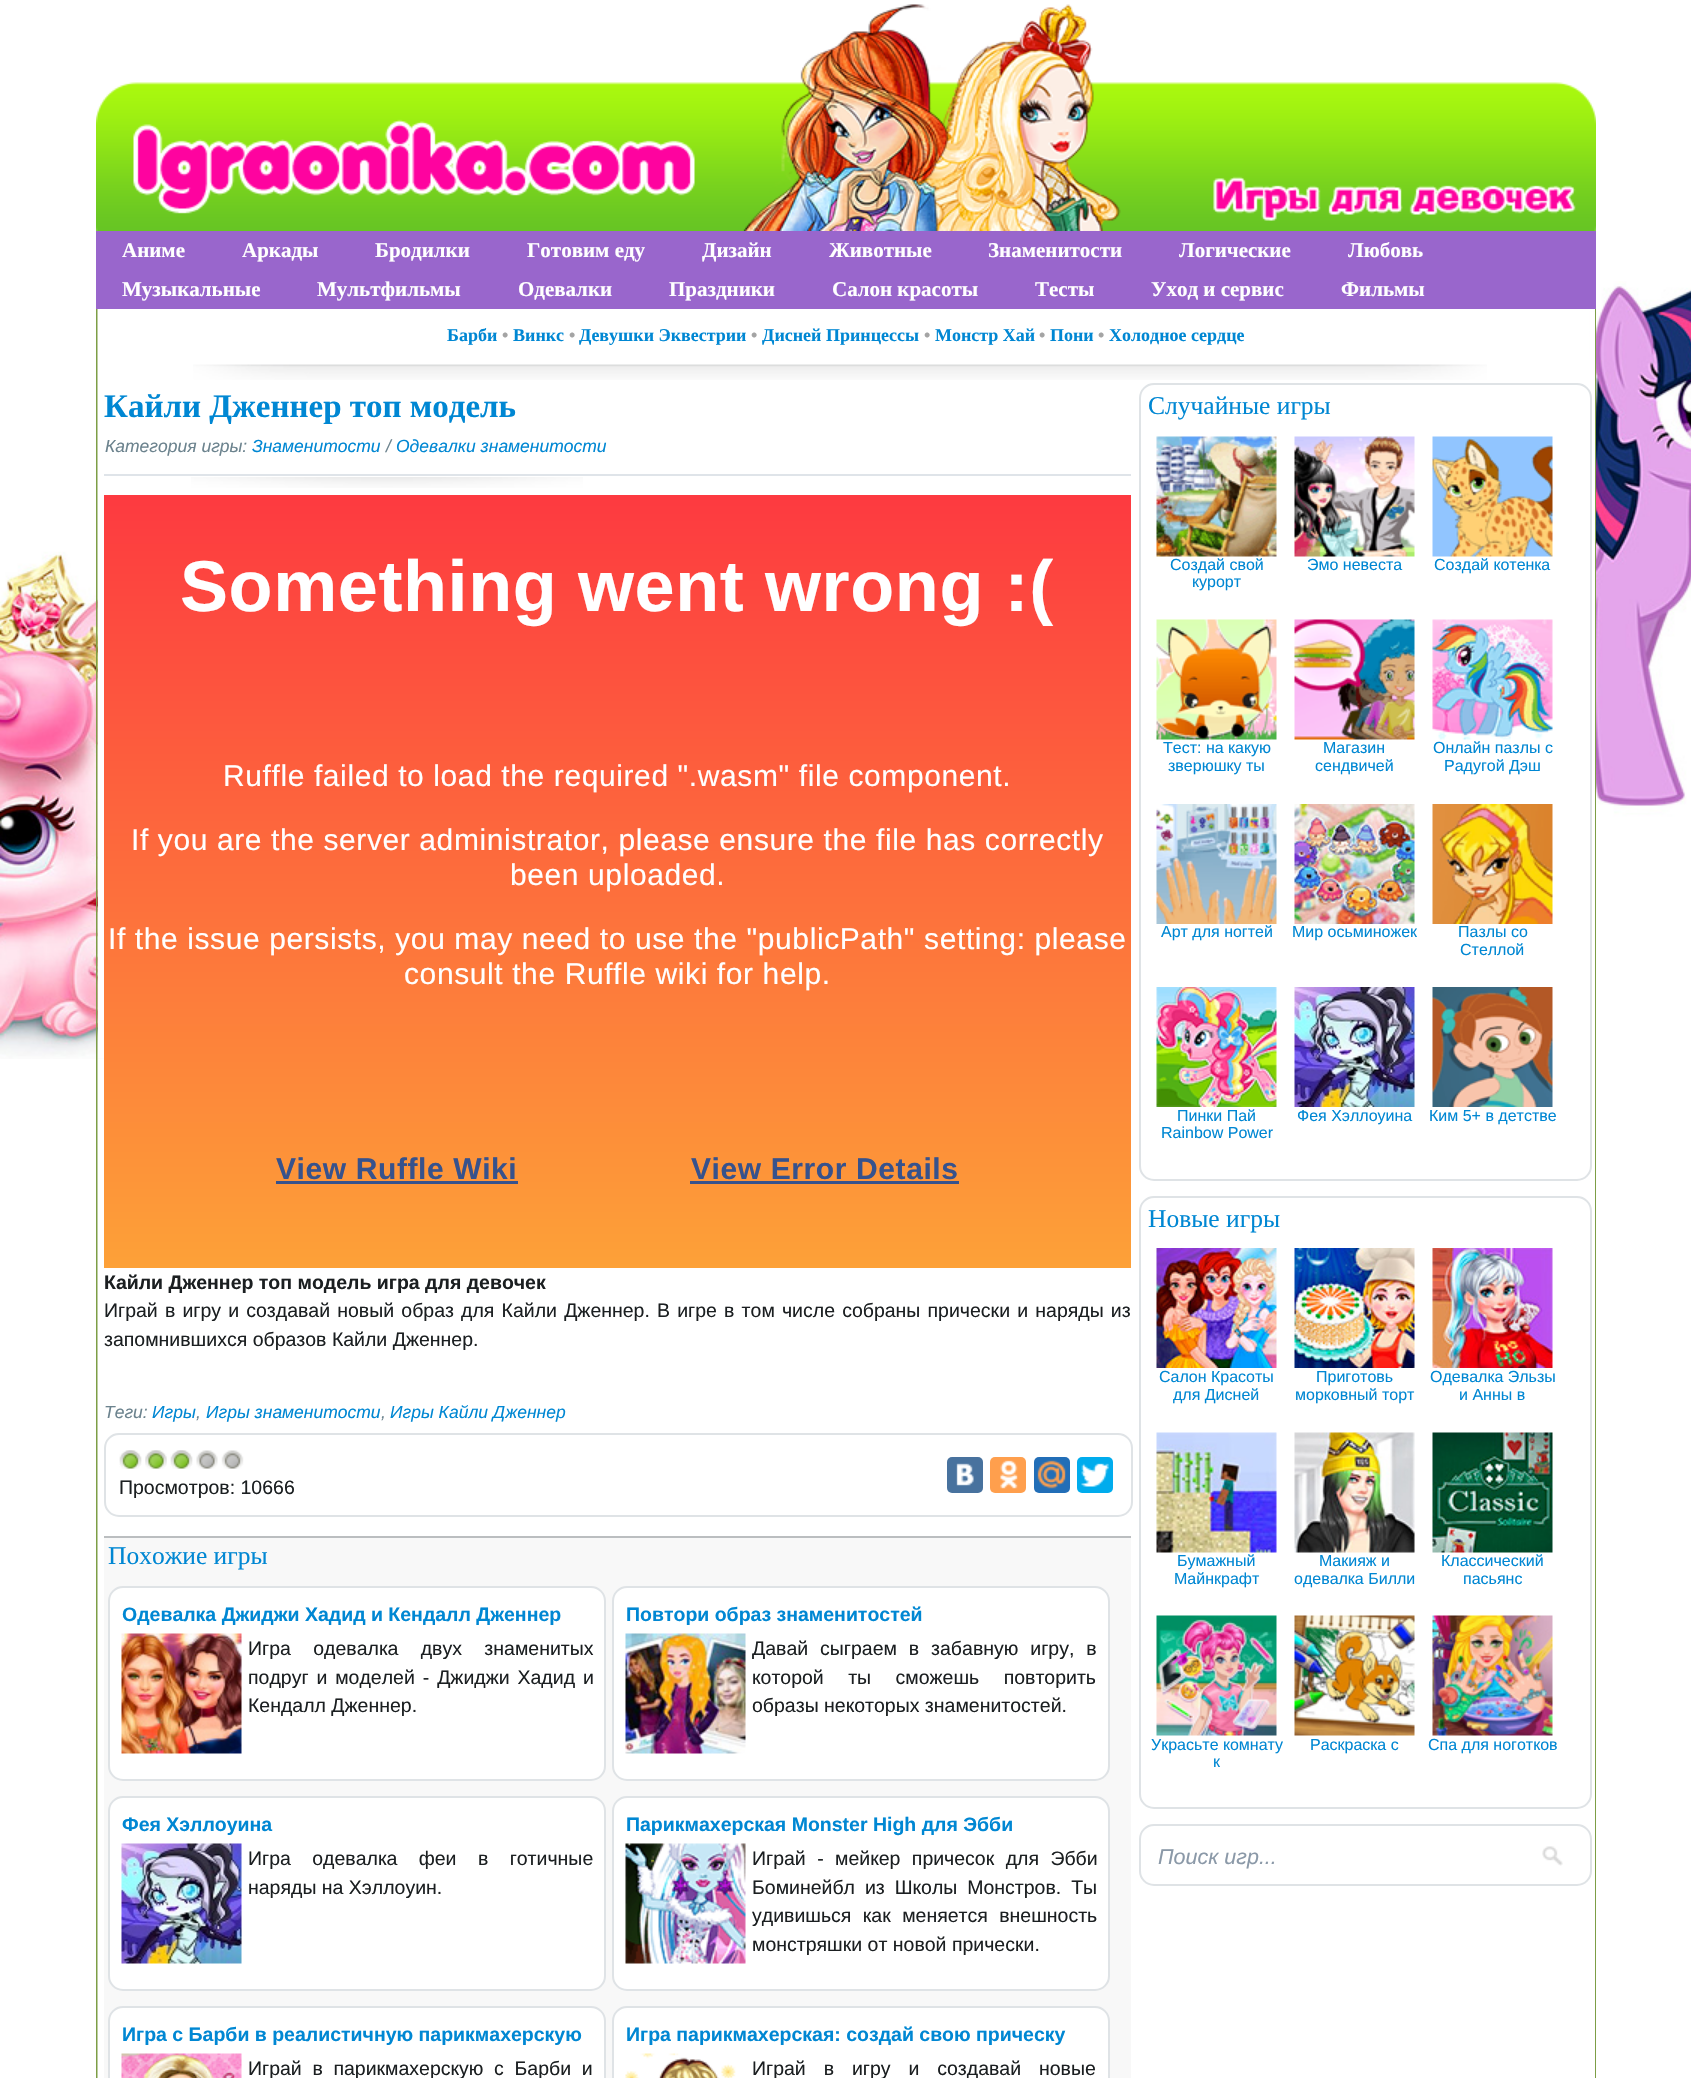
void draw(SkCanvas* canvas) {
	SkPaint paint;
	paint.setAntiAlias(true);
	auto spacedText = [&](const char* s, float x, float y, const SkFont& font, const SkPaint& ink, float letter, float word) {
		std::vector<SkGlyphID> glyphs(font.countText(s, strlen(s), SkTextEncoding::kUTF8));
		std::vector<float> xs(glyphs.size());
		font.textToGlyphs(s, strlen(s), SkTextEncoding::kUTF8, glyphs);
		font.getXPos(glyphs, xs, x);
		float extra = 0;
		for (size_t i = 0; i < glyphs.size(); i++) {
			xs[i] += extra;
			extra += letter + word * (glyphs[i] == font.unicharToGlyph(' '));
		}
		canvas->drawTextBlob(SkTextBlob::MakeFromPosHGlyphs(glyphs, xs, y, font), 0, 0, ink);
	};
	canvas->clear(0xffffffff);
	canvas->drawImageRect(SkImages::DeferredFromEncodedData(SkData::MakeFromFileName("img1.png")), SkRect::MakeXYWH(0, 281, 1691, 778), SkSamplingOptions());
	canvas->drawImageRect(SkImages::DeferredFromEncodedData(SkData::MakeFromFileName("img2.png")), SkRect::MakeXYWH(96, 4, 1500, 227), SkSamplingOptions());
	paint.setColor(0xff9966cc);
	canvas->drawRect(SkRect::MakeXYWH(96, 231, 1500, 78), paint);
	SkFont f1(fontMgr->matchFamilyStyle("Liberation Serif", SkFontStyle::Bold()), 21);
	f1.setSubpixel(true);
	paint.setColor(0xffffffff);
	canvas->drawString("Аниме", 122, 257, f1, paint);
	canvas->drawString("Аркады", 242, 257, f1, paint);
	canvas->drawString("Бродилки", 375, 257, f1, paint);
	canvas->drawString("Готовим еду", 527, 257, f1, paint);
	canvas->drawString("Дизайн", 702, 257, f1, paint);
	canvas->drawString("Животные", 829, 257, f1, paint);
	canvas->drawString("Знаменитости", 988, 257, f1, paint);
	canvas->drawString("Логические", 1179, 257, f1, paint);
	canvas->drawString("Любовь", 1348, 257, f1, paint);
	canvas->drawString("Музыкальные", 122, 296, f1, paint);
	canvas->drawString("Мультфильмы", 317, 296, f1, paint);
	canvas->drawString("Одевалки", 518, 296, f1, paint);
	canvas->drawString("Праздники", 669, 296, f1, paint);
	canvas->drawString("Салон красоты", 832, 296, f1, paint);
	canvas->drawString("Тесты", 1035, 296, f1, paint);
	canvas->drawString("Уход и сервис", 1151, 296, f1, paint);
	canvas->drawString("Фильмы", 1341, 296, f1, paint);
	canvas->drawImageRect(SkImages::DeferredFromEncodedData(SkData::MakeFromFileName("img3.png")), SkRect::MakeXYWH(96, 309, 2, 1769), SkSamplingOptions());
	canvas->drawImageRect(SkImages::DeferredFromEncodedData(SkData::MakeFromFileName("img4.png")), SkRect::MakeXYWH(1595, 309, 1, 1769), SkSamplingOptions());
	canvas->drawRect(SkRect::MakeXYWH(1590, 312, 5, 47), paint);
	SkFont f2(fontMgr->matchFamilyStyle("Liberation Serif", SkFontStyle::Bold()), 18);
	f2.setSubpixel(true);
	paint.setColor(0xff0087d3);
	canvas->drawString("Барби", 447, 341, f2, paint);
	paint.setColor(0xffa4a4a4);
	canvas->drawString("•", 502, 341, f2, paint);
	paint.setColor(0xff0087d3);
	canvas->drawString("Винкс", 513, 341, f2, paint);
	paint.setColor(0xffa4a4a4);
	canvas->drawString("•", 569, 341, f2, paint);
	paint.setColor(0xff0087d3);
	canvas->drawString("Девушки Эквестрии", 579, 341, f2, paint);
	paint.setColor(0xffa4a4a4);
	canvas->drawString("•", 751, 341, f2, paint);
	paint.setColor(0xff0087d3);
	canvas->drawString("Дисней Принцессы", 762, 341, f2, paint);
	paint.setColor(0xffa4a4a4);
	canvas->drawString("•", 924, 341, f2, paint);
	paint.setColor(0xff0087d3);
	canvas->drawString("Монстр Хай", 935, 341, f2, paint);
	paint.setColor(0xffa4a4a4);
	canvas->drawString("•", 1039, 341, f2, paint);
	paint.setColor(0xff0087d3);
	canvas->drawString("Пони", 1050, 341, f2, paint);
	paint.setColor(0xffa4a4a4);
	canvas->drawString("•", 1098, 341, f2, paint);
	paint.setColor(0xff0087d3);
	canvas->drawString("Холодное сердце", 1109, 341, f2, paint);
	paint.setColor(0xffffffff);
	canvas->drawRect(SkRect::MakeXYWH(98, 359, 1497, 699), paint);
	canvas->drawImageRect(SkImages::DeferredFromEncodedData(SkData::MakeFromFileName("img5.png")), SkRect::MakeXYWH(193, 364, 1294, 16), SkSamplingOptions());
	SkFont f3(fontMgr->matchFamilyStyle("Liberation Serif", SkFontStyle::Bold()), 33);
	f3.setSubpixel(true);
	paint.setColor(0xff0087d3);
	canvas->drawString("Кайли Дженнер топ модель", 104, 417, f3, paint);
	SkFont f4(fontMgr->matchFamilyStyle("Liberation Sans", SkFontStyle::Italic()), 17.5);
	f4.setSubpixel(true);
	paint.setColor(0xff6c838e);
	canvas->drawString("Категория игры:", 105, 452, f4, paint);
	paint.setColor(0xff0087d3);
	canvas->drawString("Знаменитости", 252, 452, f4, paint);
	paint.setColor(0xff6c838e);
	canvas->drawString("/", 386, 452, f4, paint);
	paint.setColor(0xff0087d3);
	canvas->drawString("Одевалки знаменитости", 396, 452, f4, paint);
	canvas->drawImageRect(SkImages::DeferredFromEncodedData(SkData::MakeFromFileName("img6.png")), SkRect::MakeXYWH(191, 477, 392, 11), SkSamplingOptions());
	paint.setColor(0xffdfe4e9);
	canvas->drawRect(SkRect::MakeXYWH(104, 474, 1027, 2), paint);
	{
		const SkColor colors[] = {0xfffd3a40, 0xfffda138};
		const float stops[] = {0, 1};
		const SkPoint ends[] = {{617, 495}, {617, 1268}};
		paint.setShader(SkGradientShader::MakeLinear(ends, colors, stops, 2, SkTileMode::kClamp));
		paint.setAlpha(255);
	}
	canvas->drawRect(SkRect::MakeXYWH(104, 495, 1027, 773), paint);
	SkFont f5(fontMgr->matchFamilyStyle("Liberation Sans", SkFontStyle::Bold()), 72);
	f5.setSubpixel(true);
	paint.setShader(nullptr);
	paint.setColor(0xffffffff);
	spacedText("Something went wrong :(", 180, 611, f5, paint, 0.6, 0);
	SkFont f6(fontMgr->matchFamilyStyle("Liberation Sans", SkFontStyle::Normal()), 30);
	f6.setSubpixel(true);
	spacedText("Ruffle failed to load the required \".wasm\" file component.", 223, 786, f6, paint, 0.6, 0);
	spacedText("If you are the server administrator, please ensure the file has correctly", 131, 850, f6, paint, 0.6, 0);
	spacedText("been uploaded.", 510, 885, f6, paint, 0.6, 0);
	spacedText("If the issue persists, you may need to use the \"publicPath\" setting: please", 108, 949, f6, paint, 0.6, 0);
	spacedText("consult the Ruffle wiki for help.", 404, 984, f6, paint, 0.6, 0);
	SkFont f7(fontMgr->matchFamilyStyle("Liberation Sans", SkFontStyle::Bold()), 30);
	f7.setSubpixel(true);
	paint.setColor(0xff37528c);
	spacedText("View Ruffle Wiki", 276, 1179, f7, paint, 0.6, 0);
	canvas->drawRect(SkRect::MakeXYWH(276, 1181, 242, 3), paint);
	spacedText("View Error Details", 691, 1179, f7, paint, 0.6, 0);
	canvas->drawRect(SkRect::MakeXYWH(690, 1181, 269, 3), paint);
	SkFont f8(fontMgr->matchFamilyStyle("Liberation Sans", SkFontStyle::Bold()), 19.5);
	f8.setSubpixel(true);
	paint.setColor(0xff1b1f21);
	canvas->drawString("Кайли Дженнер топ модель игра для девочек", 104, 1289, f8, paint);
	SkFont f9(fontMgr->matchFamilyStyle("Liberation Sans", SkFontStyle::Normal()), 19.5);
	f9.setSubpixel(true);
	spacedText("Играй в игру и создавай новый образ для Кайли Дженнер. В игре в том числе собраны прически и наряды из", 104, 1317, f9, paint, 0, 1.75);
	canvas->drawString("запомнившихся образов Кайли Дженнер.", 104, 1346, f9, paint);
	paint.setColor(0xff6c838e);
	canvas->drawString("Теги:", 104, 1418, f4, paint);
	paint.setColor(0xff0087d3);
	canvas->drawString("Игры", 152, 1418, f4, paint);
	paint.setColor(0xff6c838e);
	canvas->drawString(",", 196, 1418, f4, paint);
	paint.setColor(0xff0087d3);
	canvas->drawString("Игры знаменитости", 206, 1418, f4, paint);
	paint.setColor(0xff6c838e);
	canvas->drawString(",", 381, 1418, f4, paint);
	paint.setColor(0xff0087d3);
	canvas->drawString("Игры Кайли Дженнер", 390, 1418, f4, paint);
	paint.setStroke(true);
	paint.setStrokeWidth(2);
	paint.setColor(0xffdfe3e6);
	canvas->drawRoundRect(SkRect::MakeXYWH(105, 1434, 1027, 82), 14, 14, paint);
	canvas->drawImageRect(SkImages::DeferredFromEncodedData(SkData::MakeFromFileName("img7.png")), SkRect::MakeXYWH(119, 1450, 125, 19), SkSamplingOptions());
	canvas->drawImageRect(SkImages::DeferredFromEncodedData(SkData::MakeFromFileName("img8.png")), SkRect::MakeXYWH(119, 1450, 74, 19), SkSamplingOptions());
	paint.setStroke(false);
	paint.setColor(0xff1b1f21);
	canvas->drawString("Просмотров: 10666", 119, 1494, f9, paint);
	paint.setColor(0xff48729e);
	canvas->drawRoundRect(SkRect::MakeXYWH(947, 1457, 36, 36), 5, 5, paint);
	canvas->drawImageRect(SkImages::DeferredFromEncodedData(SkData::MakeFromFileName("img9.png")), SkRect::MakeXYWH(956, 1463, 18, 23), SkSamplingOptions());
	paint.setColor(0xffff9f4d);
	canvas->drawRoundRect(SkRect::MakeXYWH(990, 1457, 36, 36), 5, 5, paint);
	canvas->drawImageRect(SkImages::DeferredFromEncodedData(SkData::MakeFromFileName("img10.png")), SkRect::MakeXYWH(1000, 1460, 18, 29), SkSamplingOptions());
	paint.setColor(0xff226eb7);
	canvas->drawRoundRect(SkRect::MakeXYWH(1034, 1457, 36, 36), 5, 5, paint);
	canvas->drawImageRect(SkImages::DeferredFromEncodedData(SkData::MakeFromFileName("img11.png")), SkRect::MakeXYWH(1037, 1460, 29, 29), SkSamplingOptions());
	paint.setColor(0xff00aced);
	canvas->drawRoundRect(SkRect::MakeXYWH(1077, 1457, 36, 36), 5, 5, paint);
	canvas->drawImageRect(SkImages::DeferredFromEncodedData(SkData::MakeFromFileName("img12.png")), SkRect::MakeXYWH(1081, 1463, 28, 24), SkSamplingOptions());
	paint.setColor(0xfff8f8f8);
	canvas->drawRect(SkRect::MakeXYWH(104, 1538, 1027, 540), paint);
	paint.setColor(0xffbbbec0);
	canvas->drawRect(SkRect::MakeXYWH(104, 1536, 1027, 2), paint);
	SkFont f10(fontMgr->matchFamilyStyle("Liberation Serif", SkFontStyle::Normal()), 25.5);
	f10.setSubpixel(true);
	paint.setColor(0xff0087d3);
	canvas->drawString("Похожие игры", 108, 1564, f10, paint);
	paint.setColor(0xffffffff);
	canvas->drawRoundRect(SkRect::MakeXYWH(109, 1587, 496, 193), 14, 14, paint);
	paint.setStroke(true);
	paint.setColor(0xffdfe3e6);
	canvas->drawRoundRect(SkRect::MakeXYWH(109, 1587, 496, 193), 14, 14, paint);
	paint.setStroke(false);
	paint.setColor(0xff0087d3);
	canvas->drawString("Одевалка Джиджи Хадид и Кендалл Дженнер", 122, 1621, f8, paint);
	canvas->drawImageRect(SkImages::DeferredFromEncodedData(SkData::MakeFromFileName("img13.png")), SkRect::MakeXYWH(121, 1633, 121, 121), SkSamplingOptions());
	paint.setColor(0xff1b1f21);
	spacedText("Игра одевалка двух знаменитых", 248, 1655, f9, paint, 0, 17);
	spacedText("подруг и моделей - Джиджи Хадид и", 248, 1684, f9, paint, 0, 2.5);
	canvas->drawString("Кендалл Дженнер.", 248, 1712, f9, paint);
	paint.setColor(0xffffffff);
	canvas->drawRoundRect(SkRect::MakeXYWH(613, 1587, 496, 193), 14, 14, paint);
	paint.setStroke(true);
	paint.setColor(0xffdfe3e6);
	canvas->drawRoundRect(SkRect::MakeXYWH(613, 1587, 496, 193), 14, 14, paint);
	paint.setStroke(false);
	paint.setColor(0xff0087d3);
	canvas->drawString("Повтори образ знаменитостей", 626, 1621, f8, paint);
	canvas->drawImageRect(SkImages::DeferredFromEncodedData(SkData::MakeFromFileName("img14.png")), SkRect::MakeXYWH(625, 1633, 121, 121), SkSamplingOptions());
	paint.setColor(0xff1b1f21);
	spacedText("Давай сыграем в забавную игру, в", 752, 1655, f9, paint, 0, 6.5);
	spacedText("которой ты сможешь повторить", 752, 1684, f9, paint, 0, 19);
	canvas->drawString("образы некоторых знаменитостей.", 752, 1712, f9, paint);
	paint.setColor(0xffffffff);
	canvas->drawRoundRect(SkRect::MakeXYWH(109, 1797, 496, 193), 14, 14, paint);
	paint.setStroke(true);
	paint.setColor(0xffdfe3e6);
	canvas->drawRoundRect(SkRect::MakeXYWH(109, 1797, 496, 193), 14, 14, paint);
	paint.setStroke(false);
	paint.setColor(0xff0087d3);
	canvas->drawString("Фея Хэллоуина", 122, 1831, f8, paint);
	canvas->drawImageRect(SkImages::DeferredFromEncodedData(SkData::MakeFromFileName("img15.png")), SkRect::MakeXYWH(121, 1843, 121, 121), SkSamplingOptions());
	paint.setColor(0xff1b1f21);
	spacedText("Игра одевалка феи в готичные", 248, 1865, f9, paint, 0, 16);
	canvas->drawString("наряды на Хэллоуин.", 248, 1894, f9, paint);
	paint.setColor(0xffffffff);
	canvas->drawRoundRect(SkRect::MakeXYWH(613, 1797, 496, 193), 14, 14, paint);
	paint.setStroke(true);
	paint.setColor(0xffdfe3e6);
	canvas->drawRoundRect(SkRect::MakeXYWH(613, 1797, 496, 193), 14, 14, paint);
	paint.setStroke(false);
	paint.setColor(0xff0087d3);
	canvas->drawString("Парикмахерская Monster High для Эбби", 626, 1831, f8, paint);
	canvas->drawImageRect(SkImages::DeferredFromEncodedData(SkData::MakeFromFileName("img16.png")), SkRect::MakeXYWH(625, 1843, 121, 121), SkSamplingOptions());
	paint.setColor(0xff1b1f21);
	spacedText("Играй - мейкер причесок для Эбби", 752, 1865, f9, paint, 0, 6);
	spacedText("Боминейбл из Школы Монстров. Ты", 752, 1894, f9, paint, 0, 4.5);
	spacedText("удивишься как меняется внешность", 752, 1922, f9, paint, 0, 6);
	canvas->drawString("монстряшки от новой прически.", 752, 1951, f9, paint);
	paint.setColor(0xffffffff);
	canvas->drawRoundRect(SkRect::MakeXYWH(109, 2007, 496, 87), 14, 14, paint);
	paint.setStroke(true);
	paint.setColor(0xffdfe3e6);
	canvas->drawRoundRect(SkRect::MakeXYWH(109, 2007, 496, 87), 14, 14, paint);
	paint.setStroke(false);
	paint.setColor(0xff0087d3);
	canvas->drawString("Игра с Барби в реалистичную парикмахерскую", 122, 2041, f8, paint);
	canvas->drawImageRect(SkImages::DeferredFromEncodedData(SkData::MakeFromFileName("img17.png")), SkRect::MakeXYWH(121, 2053, 121, 25), SkSamplingOptions());
	paint.setColor(0xff1b1f21);
	spacedText("Играй в парикмахерскую с Барби и", 248, 2075, f9, paint, 0, 5.25);
	paint.setColor(0xffffffff);
	canvas->drawRoundRect(SkRect::MakeXYWH(613, 2007, 496, 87), 14, 14, paint);
	paint.setStroke(true);
	paint.setColor(0xffdfe3e6);
	canvas->drawRoundRect(SkRect::MakeXYWH(613, 2007, 496, 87), 14, 14, paint);
	paint.setStroke(false);
	paint.setColor(0xff0087d3);
	canvas->drawString("Игра парикмахерская: создай свою прическу", 626, 2041, f8, paint);
	canvas->drawImageRect(SkImages::DeferredFromEncodedData(SkData::MakeFromFileName("img18.png")), SkRect::MakeXYWH(625, 2053, 111, 25), SkSamplingOptions());
	paint.setColor(0xff1b1f21);
	spacedText("Играй в игру и создавай новые", 752, 2075, f9, paint, 0, 12.5);
	paint.setStroke(true);
	paint.setColor(0xffdfe3e6);
	canvas->drawRoundRect(SkRect::MakeXYWH(1140, 384, 451, 796), 14, 14, paint);
	paint.setStroke(false);
	paint.setColor(0xff0087d3);
	canvas->drawString("Случайные игры", 1148, 414, f10, paint);
	canvas->drawImageRect(SkImages::DeferredFromEncodedData(SkData::MakeFromFileName("img19.png")), SkRect::MakeXYWH(1156, 436, 121, 121), SkSamplingOptions());
	SkFont f11(fontMgr->matchFamilyStyle("Liberation Sans", SkFontStyle::Normal()), 16);
	f11.setSubpixel(true);
	canvas->drawString("Создай свой", 1170, 570, f11, paint);
	canvas->drawString("курорт", 1192, 587, f11, paint);
	canvas->drawImageRect(SkImages::DeferredFromEncodedData(SkData::MakeFromFileName("img20.png")), SkRect::MakeXYWH(1294, 436, 121, 121), SkSamplingOptions());
	canvas->drawString("Эмо невеста", 1307, 570, f11, paint);
	canvas->drawImageRect(SkImages::DeferredFromEncodedData(SkData::MakeFromFileName("img21.png")), SkRect::MakeXYWH(1432, 436, 121, 121), SkSamplingOptions());
	canvas->drawString("Создай котенка", 1434, 570, f11, paint);
	canvas->drawImageRect(SkImages::DeferredFromEncodedData(SkData::MakeFromFileName("img22.png")), SkRect::MakeXYWH(1156, 619, 121, 121), SkSamplingOptions());
	canvas->drawString("Тест: на какую", 1163, 753, f11, paint);
	canvas->drawString("зверюшку ты", 1168, 771, f11, paint);
	canvas->drawImageRect(SkImages::DeferredFromEncodedData(SkData::MakeFromFileName("img23.png")), SkRect::MakeXYWH(1294, 619, 121, 121), SkSamplingOptions());
	canvas->drawString("Магазин", 1323, 753, f11, paint);
	canvas->drawString("сендвичей", 1315, 771, f11, paint);
	canvas->drawImageRect(SkImages::DeferredFromEncodedData(SkData::MakeFromFileName("img24.png")), SkRect::MakeXYWH(1432, 619, 121, 121), SkSamplingOptions());
	canvas->drawString("Онлайн пазлы с", 1433, 753, f11, paint);
	canvas->drawString("Радугой Дэш", 1444, 771, f11, paint);
	canvas->drawImageRect(SkImages::DeferredFromEncodedData(SkData::MakeFromFileName("img25.png")), SkRect::MakeXYWH(1156, 804, 121, 120), SkSamplingOptions());
	canvas->drawString("Арт для ногтей", 1161, 937, f11, paint);
	canvas->drawImageRect(SkImages::DeferredFromEncodedData(SkData::MakeFromFileName("img26.png")), SkRect::MakeXYWH(1294, 804, 121, 120), SkSamplingOptions());
	canvas->drawString("Мир осьминожек", 1292, 937, f11, paint);
	canvas->drawImageRect(SkImages::DeferredFromEncodedData(SkData::MakeFromFileName("img27.png")), SkRect::MakeXYWH(1432, 804, 121, 120), SkSamplingOptions());
	canvas->drawString("Пазлы со", 1458, 937, f11, paint);
	canvas->drawString("Стеллой", 1460, 955, f11, paint);
	canvas->drawImageRect(SkImages::DeferredFromEncodedData(SkData::MakeFromFileName("img28.png")), SkRect::MakeXYWH(1156, 987, 121, 120), SkSamplingOptions());
	canvas->drawString("Пинки Пай", 1177, 1121, f11, paint);
	canvas->drawString("Rainbow Power", 1161, 1138, f11, paint);
	canvas->drawImageRect(SkImages::DeferredFromEncodedData(SkData::MakeFromFileName("img29.png")), SkRect::MakeXYWH(1294, 987, 121, 120), SkSamplingOptions());
	canvas->drawString("Фея Хэллоуина", 1297, 1121, f11, paint);
	canvas->drawImageRect(SkImages::DeferredFromEncodedData(SkData::MakeFromFileName("img30.png")), SkRect::MakeXYWH(1432, 987, 121, 120), SkSamplingOptions());
	canvas->drawString("Ким 5+ в детстве", 1429, 1121, f11, paint);
	paint.setStroke(true);
	paint.setColor(0xffdfe3e6);
	canvas->drawRoundRect(SkRect::MakeXYWH(1140, 1197, 451, 611), 14, 14, paint);
	paint.setStroke(false);
	paint.setColor(0xff0087d3);
	canvas->drawString("Новые игры", 1148, 1227, f10, paint);
	canvas->drawImageRect(SkImages::DeferredFromEncodedData(SkData::MakeFromFileName("img31.png")), SkRect::MakeXYWH(1156, 1248, 121, 120), SkSamplingOptions());
	canvas->drawString("Салон Красоты", 1159, 1382, f11, paint);
	canvas->drawString("для Дисней", 1173, 1400, f11, paint);
	canvas->drawImageRect(SkImages::DeferredFromEncodedData(SkData::MakeFromFileName("img32.png")), SkRect::MakeXYWH(1294, 1248, 121, 120), SkSamplingOptions());
	canvas->drawString("Приготовь", 1316, 1382, f11, paint);
	canvas->drawString("морковный торт", 1295, 1400, f11, paint);
	canvas->drawImageRect(SkImages::DeferredFromEncodedData(SkData::MakeFromFileName("img33.png")), SkRect::MakeXYWH(1432, 1248, 121, 120), SkSamplingOptions());
	canvas->drawString("Одевалка Эльзы", 1430, 1382, f11, paint);
	canvas->drawString("и Анны в", 1459, 1400, f11, paint);
	canvas->drawImageRect(SkImages::DeferredFromEncodedData(SkData::MakeFromFileName("img34.png")), SkRect::MakeXYWH(1156, 1432, 121, 121), SkSamplingOptions());
	canvas->drawString("Бумажный", 1177, 1566, f11, paint);
	canvas->drawString("Майнкрафт", 1174, 1584, f11, paint);
	canvas->drawImageRect(SkImages::DeferredFromEncodedData(SkData::MakeFromFileName("img35.png")), SkRect::MakeXYWH(1294, 1432, 121, 121), SkSamplingOptions());
	canvas->drawString("Макияж и", 1319, 1566, f11, paint);
	canvas->drawString("одевалка Билли", 1294, 1584, f11, paint);
	canvas->drawImageRect(SkImages::DeferredFromEncodedData(SkData::MakeFromFileName("img36.png")), SkRect::MakeXYWH(1432, 1432, 121, 121), SkSamplingOptions());
	canvas->drawString("Классический", 1441, 1566, f11, paint);
	canvas->drawString("пасьянс", 1463, 1584, f11, paint);
	canvas->drawImageRect(SkImages::DeferredFromEncodedData(SkData::MakeFromFileName("img37.png")), SkRect::MakeXYWH(1156, 1615, 121, 121), SkSamplingOptions());
	canvas->drawString("Украсьте комнату", 1151, 1750, f11, paint);
	canvas->drawString("к", 1213, 1767, f11, paint);
	canvas->drawImageRect(SkImages::DeferredFromEncodedData(SkData::MakeFromFileName("img38.png")), SkRect::MakeXYWH(1294, 1615, 121, 121), SkSamplingOptions());
	canvas->drawString("Раскраска с", 1310, 1750, f11, paint);
	canvas->drawImageRect(SkImages::DeferredFromEncodedData(SkData::MakeFromFileName("img39.png")), SkRect::MakeXYWH(1432, 1615, 121, 121), SkSamplingOptions());
	canvas->drawString("Спа для ноготков", 1428, 1750, f11, paint);
	paint.setStroke(true);
	paint.setColor(0xffdfe3e6);
	canvas->drawRoundRect(SkRect::MakeXYWH(1140, 1825, 451, 60), 14, 14, paint);
	SkFont f12(fontMgr->matchFamilyStyle("Liberation Sans", SkFontStyle::Italic()), 21.5);
	f12.setSubpixel(true);
	paint.setStroke(false);
	paint.setColor(0xff8b99a8);
	canvas->drawString("Поиск игр...", 1158, 1864, f12, paint);
	canvas->drawImageRect(SkImages::DeferredFromEncodedData(SkData::MakeFromFileName("img40.png")), SkRect::MakeXYWH(1542, 1846, 21, 20), SkSamplingOptions());
}
